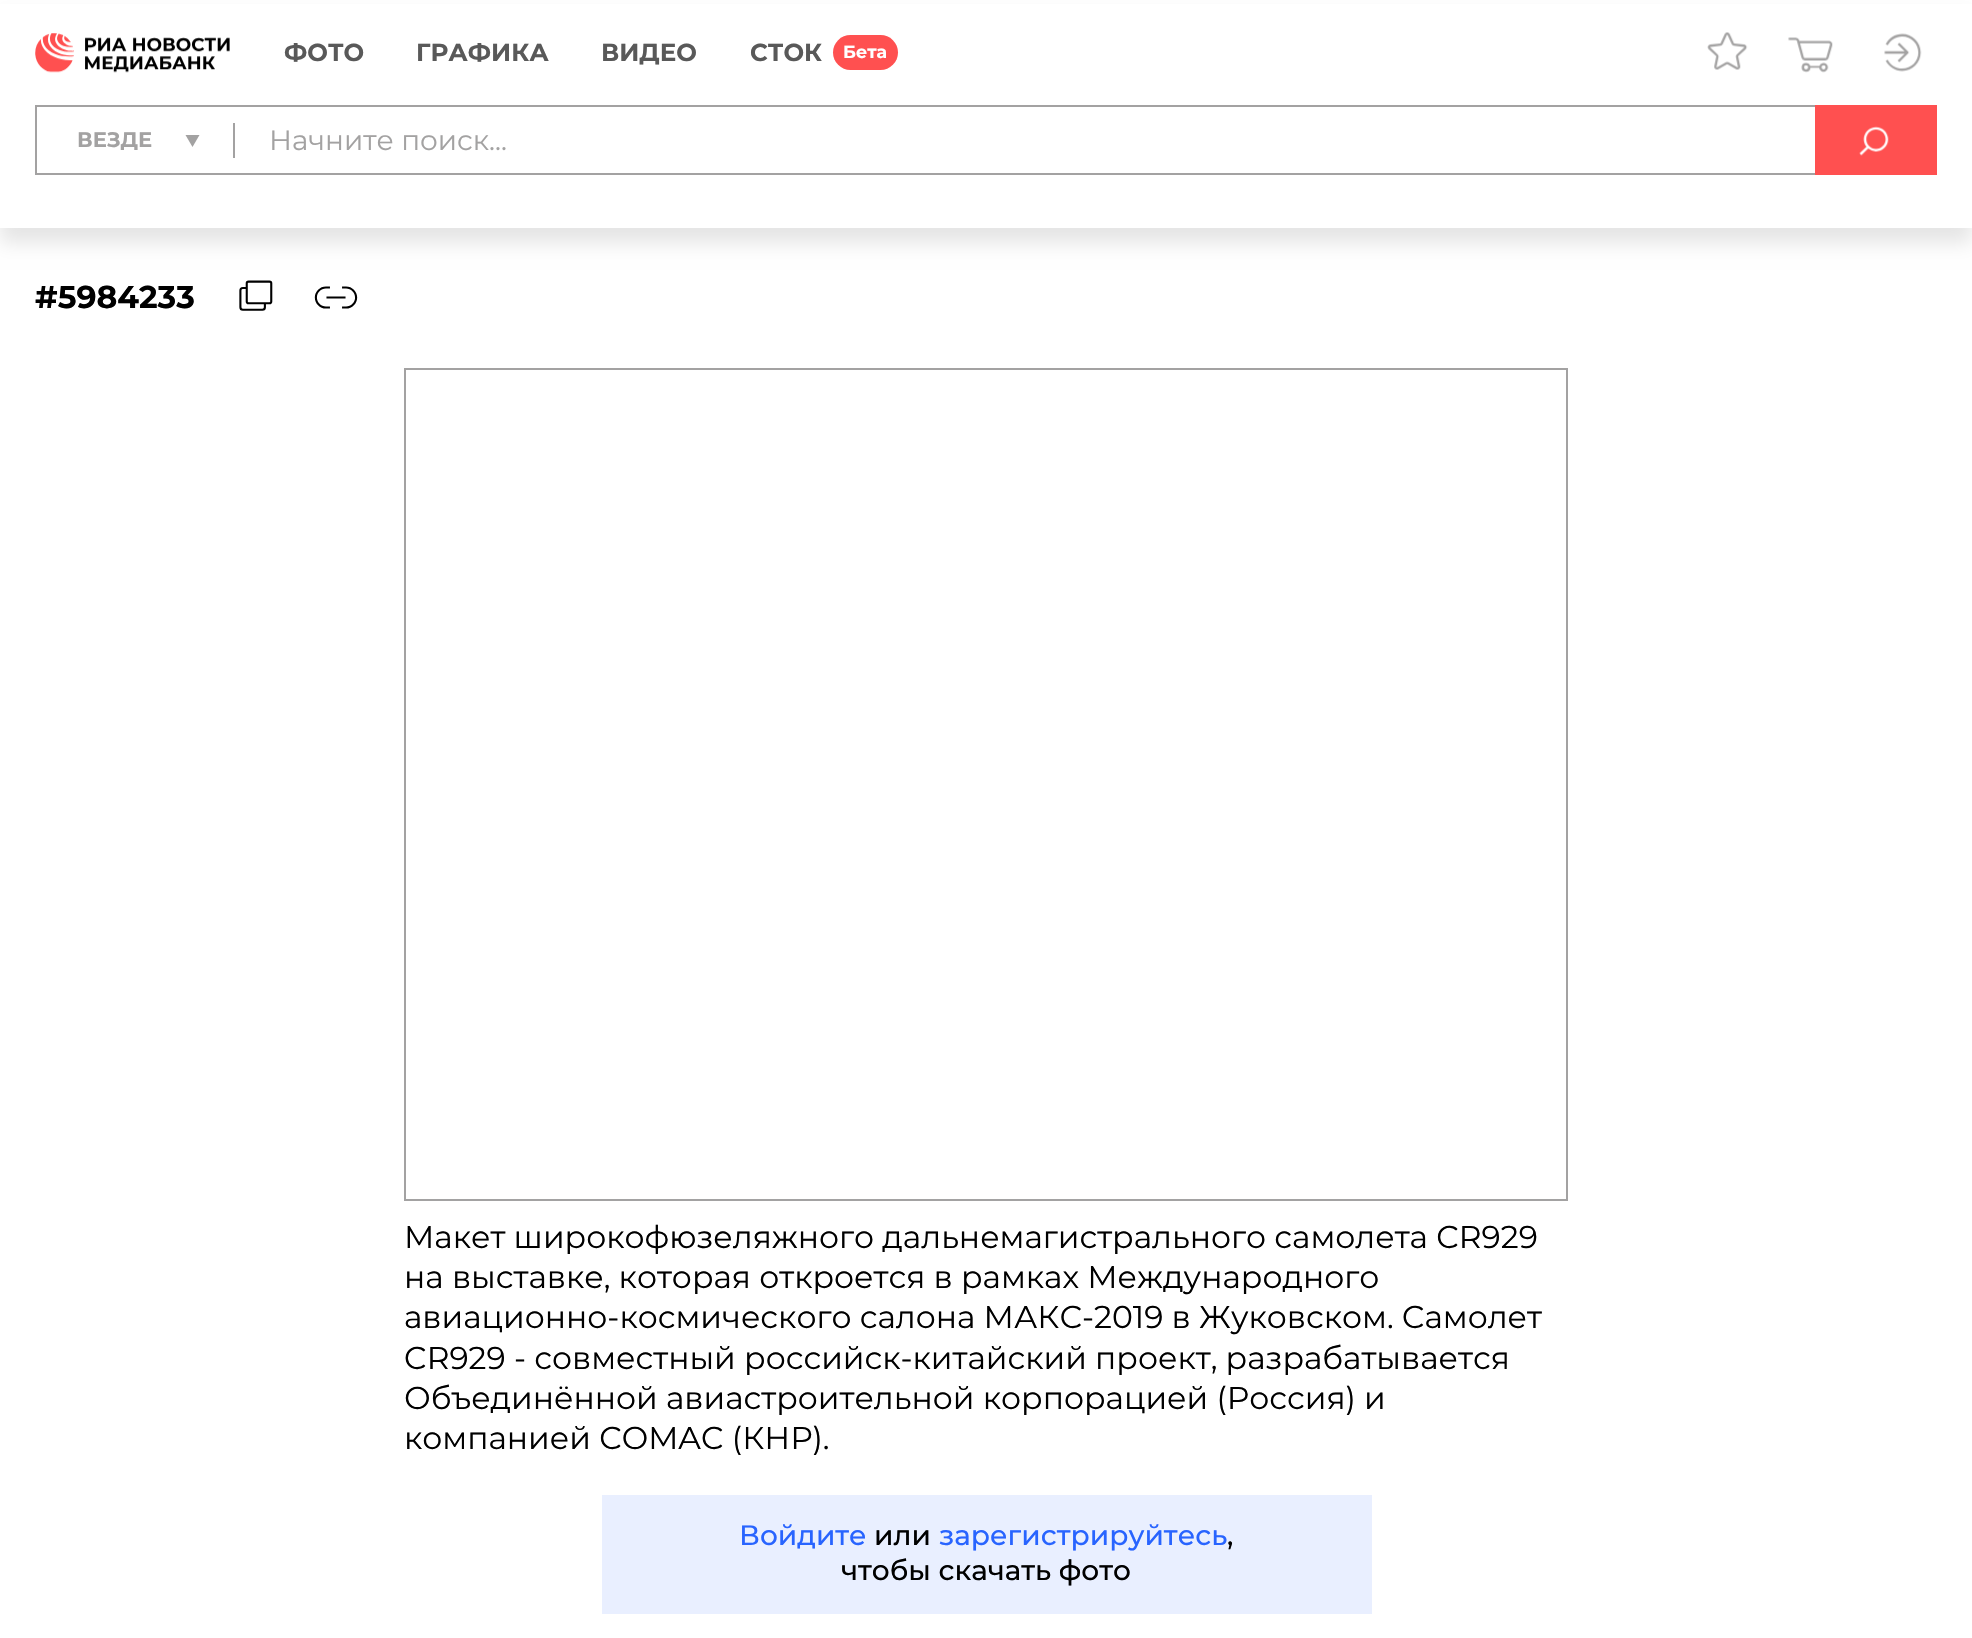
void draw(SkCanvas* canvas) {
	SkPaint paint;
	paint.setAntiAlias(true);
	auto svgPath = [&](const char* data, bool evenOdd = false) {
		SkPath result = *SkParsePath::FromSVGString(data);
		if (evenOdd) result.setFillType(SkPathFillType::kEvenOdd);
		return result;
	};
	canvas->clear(0xffffffff);
	paint.setColor(0x1a000000);
	paint.setMaskFilter(SkMaskFilter::MakeBlur(kNormal_SkBlurStyle, 9));
	canvas->drawRect(SkRect::MakeXYWH(0, 16, 1972, 227), paint);
	paint.setMaskFilter(nullptr);
	paint.setColor(0xffffffff);
	canvas->drawRect(SkRect::MakeXYWH(0, 4, 1972, 224), paint);
	canvas->drawImageRect(SkImages::DeferredFromEncodedData(SkData::MakeFromFileName("img1.png")), SkRect::MakeXYWH(35, 33, 195, 40), SkSamplingOptions());
	SkFont f1(fontMgr->matchFamilyStyle("Montserrat", SkFontStyle::Bold()), 24.5);
	f1.setSubpixel(true);
	paint.setColor(0xff595959);
	canvas->drawString("ФОТО", 284, 61, f1, paint);
	canvas->drawString("ГРАФИКА", 416, 61, f1, paint);
	canvas->drawString("ВИДЕО", 601, 61, f1, paint);
	canvas->drawString("СТОК", 750, 61, f1, paint);
	paint.setColor(0xffff5050);
	canvas->drawRoundRect(SkRect::MakeXYWH(833, 35, 65, 35), 17.5, 17.5, paint);
	SkFont f2(fontMgr->matchFamilyStyle("Montserrat", SkFontStyle::Bold()), 17.5);
	f2.setSubpixel(true);
	paint.setColor(0xffffffff);
	canvas->drawString("Бета", 843, 58, f2, paint);
	canvas->drawImageRect(SkImages::DeferredFromEncodedData(SkData::MakeFromFileName("img2.png")), SkRect::MakeXYWH(1707, 32, 41, 38), SkSamplingOptions());
	canvas->drawImageRect(SkImages::DeferredFromEncodedData(SkData::MakeFromFileName("img3.png")), SkRect::MakeXYWH(1788, 37, 45, 36), SkSamplingOptions());
	canvas->drawImageRect(SkImages::DeferredFromEncodedData(SkData::MakeFromFileName("img4.png")), SkRect::MakeXYWH(1884, 33, 38, 39), SkSamplingOptions());
	paint.setColor(0xffa3a2a2);
	canvas->drawRect(SkRect::MakeXYWH(35, 105, 1780, 2), paint);
	canvas->drawRect(SkRect::MakeXYWH(35, 173, 1780, 2), paint);
	canvas->drawRect(SkRect::MakeXYWH(35, 105, 2, 70), paint);
	SkFont f3(fontMgr->matchFamilyStyle("Montserrat", SkFontStyle::Bold()), 21);
	f3.setSubpixel(true);
	canvas->drawString("ВЕЗДЕ", 77, 147, f3, paint);
	canvas->drawPath(svgPath("M185.5 135H199.5L192.5 147Z"), paint);
	canvas->drawRect(SkRect::MakeXYWH(233, 123, 2, 35), paint);
	SkFont f4(fontMgr->matchFamilyStyle("Montserrat", SkFontStyle::Normal()), 28);
	f4.setSubpixel(true);
	canvas->drawString("Начните поиск...", 269, 150, f4, paint);
	paint.setColor(0xffff5050);
	canvas->drawRect(SkRect::MakeXYWH(1815, 105, 122, 70), paint);
	canvas->drawImageRect(SkImages::DeferredFromEncodedData(SkData::MakeFromFileName("img5.png")), SkRect::MakeXYWH(1859, 126, 30, 30), SkSamplingOptions());
	SkFont f5(fontMgr->matchFamilyStyle("Montserrat", SkFontStyle::Bold()), 31.5);
	f5.setSubpixel(true);
	paint.setColor(0xff000000);
	canvas->drawString("#5984233", 35, 308, f5, paint);
	canvas->drawImageRect(SkImages::DeferredFromEncodedData(SkData::MakeFromFileName("img6.png")), SkRect::MakeXYWH(239, 280, 34, 31), SkSamplingOptions());
	canvas->drawImageRect(SkImages::DeferredFromEncodedData(SkData::MakeFromFileName("img7.png")), SkRect::MakeXYWH(314, 286, 44, 23), SkSamplingOptions());
	paint.setStroke(true);
	paint.setStrokeWidth(2);
	paint.setColor(0xffa3a2a2);
	canvas->drawRect(SkRect::MakeXYWH(405, 369, 1162, 831), paint);
	SkFont f6(fontMgr->matchFamilyStyle("Montserrat", SkFontStyle::Normal()), 31.5);
	f6.setSubpixel(true);
	paint.setStroke(false);
	paint.setColor(0xff000000);
	canvas->drawString("Макет широкофюзеляжного дальнемагистрального самолета CR929", 404, 1248, f6, paint);
	canvas->drawString("на выставке, которая откроется в рамках Международного", 404, 1288, f6, paint);
	canvas->drawString("авиационно-космического салона МАКС-2019 в Жуковском. Самолет", 404, 1328, f6, paint);
	canvas->drawString("CR929 - совместный российск-китайский проект, разрабатывается", 404, 1369, f6, paint);
	canvas->drawString("Объединённой авиастроительной корпорацией (Россия) и", 404, 1409, f6, paint);
	canvas->drawString("компанией COMAC (КНР).", 404, 1449, f6, paint);
	paint.setColor(0xffe9efff);
	canvas->drawRect(SkRect::MakeXYWH(602, 1495, 770, 119), paint);
	SkFont f7(fontMgr->matchFamilyStyle("Montserrat", SkFontStyle(500, SkFontStyle::kNormal_Width, SkFontStyle::kUpright_Slant)), 28);
	f7.setSubpixel(true);
	paint.setColor(0xff2864ff);
	canvas->drawString("Войдите", 739, 1545, f7, paint);
	paint.setColor(0xff000000);
	canvas->drawString("или", 874, 1545, f7, paint);
	paint.setColor(0xff2864ff);
	canvas->drawString("зарегистрируйтесь", 939, 1545, f7, paint);
	paint.setColor(0xff000000);
	canvas->drawString(",", 1227, 1545, f7, paint);
	canvas->drawString("чтобы скачать фото", 841, 1580, f7, paint);
}
